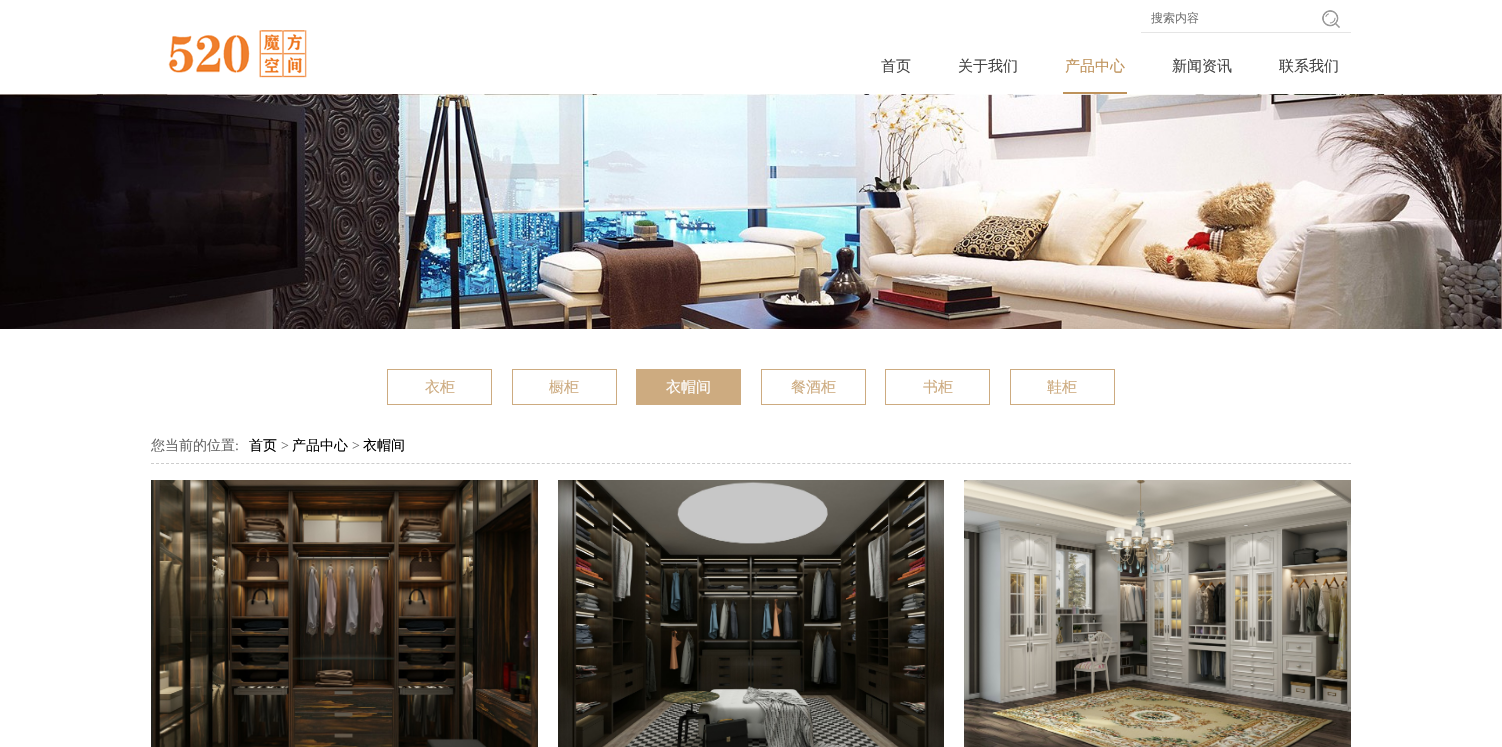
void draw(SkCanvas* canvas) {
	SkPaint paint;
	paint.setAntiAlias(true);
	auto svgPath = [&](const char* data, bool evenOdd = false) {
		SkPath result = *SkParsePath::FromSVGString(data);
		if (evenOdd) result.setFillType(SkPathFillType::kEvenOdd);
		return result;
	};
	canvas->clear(0xffffffff);
	canvas->drawImageRect(SkImages::DeferredFromEncodedData(SkData::MakeFromFileName("img1.png")), SkRect::MakeXYWH(168, 30, 139, 48), SkSamplingOptions());
	paint.setColor(0xffe5e5e5);
	canvas->drawRect(SkRect::MakeXYWH(1141, 32, 210, 1), paint);
	SkFont f1(fontMgr->matchFamilyStyle("WenQuanYi Zen Hei", SkFontStyle(500, SkFontStyle::kNormal_Width, SkFontStyle::kUpright_Slant)), 12);
	f1.setSubpixel(true);
	paint.setColor(0xff757575);
	canvas->drawString("搜索内容", 1151, 22, f1, paint);
	canvas->drawImageRect(SkImages::DeferredFromEncodedData(SkData::MakeFromFileName("img2.png")), SkRect::MakeXYWH(1322, 10, 18, 18), SkSamplingOptions());
	SkFont f2(fontMgr->matchFamilyStyle("WenQuanYi Zen Hei", SkFontStyle(500, SkFontStyle::kNormal_Width, SkFontStyle::kUpright_Slant)), 15);
	f2.setSubpixel(true);
	paint.setColor(0xff444444);
	canvas->drawString("首页", 881, 71, f2, paint);
	canvas->drawString("关于我们", 958, 71, f2, paint);
	paint.setColor(0xffbe925b);
	canvas->drawString("产品中心", 1065, 71, f2, paint);
	canvas->drawRect(SkRect::MakeXYWH(1063, 92, 64, 2), paint);
	paint.setColor(0xff444444);
	canvas->drawString("新闻资讯", 1172, 71, f2, paint);
	canvas->drawString("联系我们", 1279, 71, f2, paint);
	canvas->drawImageRect(SkImages::DeferredFromEncodedData(SkData::MakeFromFileName("img3.png")), SkRect::MakeXYWH(0, 94, 1502, 235), SkSamplingOptions());
	paint.setStroke(true);
	paint.setStrokeWidth(1);
	paint.setColor(0xffcdab80);
	canvas->drawRect(SkRect::MakeXYWH(387.5, 369.5, 104, 35), paint);
	paint.setStroke(false);
	canvas->drawString("衣柜", 425, 392, f2, paint);
	paint.setStroke(true);
	canvas->drawRect(SkRect::MakeXYWH(512.5, 369.5, 104, 35), paint);
	paint.setStroke(false);
	canvas->drawString("橱柜", 549, 392, f2, paint);
	canvas->drawRect(SkRect::MakeXYWH(636, 369, 105, 36), paint);
	paint.setColor(0xffffffff);
	canvas->drawString("衣帽间", 666, 392, f2, paint);
	paint.setStroke(true);
	paint.setColor(0xffcdab80);
	canvas->drawRect(SkRect::MakeXYWH(761.5, 369.5, 104, 35), paint);
	paint.setStroke(false);
	canvas->drawString("餐酒柜", 791, 392, f2, paint);
	paint.setStroke(true);
	canvas->drawRect(SkRect::MakeXYWH(885.5, 369.5, 104, 35), paint);
	paint.setStroke(false);
	canvas->drawString("书柜", 923, 392, f2, paint);
	paint.setStroke(true);
	canvas->drawRect(SkRect::MakeXYWH(1010.5, 369.5, 104, 35), paint);
	paint.setStroke(false);
	canvas->drawString("鞋柜", 1047, 392, f2, paint);
	paint.setStroke(true);
	paint.setColor(0xffcccccc);
	paint.setPathEffect(SkDashPathEffect::Make({{3, 2.01f}}, 0));
	canvas->drawPath(svgPath("M151 463.5H1351"), paint);
	paint.setPathEffect(nullptr);
	SkFont f3(fontMgr->matchFamilyStyle("WenQuanYi Zen Hei", SkFontStyle(500, SkFontStyle::kNormal_Width, SkFontStyle::kUpright_Slant)), 14);
	f3.setSubpixel(true);
	paint.setStroke(false);
	paint.setColor(0xff666666);
	canvas->drawString("您当前的位置", 151, 450, f3, paint);
	SkFont f4(fontMgr->matchFamilyStyle("Liberation Serif", SkFontStyle::Normal()), 14);
	f4.setSubpixel(true);
	canvas->drawString(":", 235, 450, f4, paint);
	paint.setColor(0xff000000);
	canvas->drawString("首页", 249, 450, f3, paint);
	paint.setColor(0xff666666);
	canvas->drawString(">", 281, 450, f4, paint);
	paint.setColor(0xff000000);
	canvas->drawString("产品中心", 292, 450, f3, paint);
	paint.setColor(0xff666666);
	canvas->drawString(">", 352, 450, f4, paint);
	paint.setColor(0xff000000);
	canvas->drawString("衣帽间", 363, 450, f3, paint);
	canvas->drawImageRect(SkImages::DeferredFromEncodedData(SkData::MakeFromFileName("img4.png")), SkRect::MakeXYWH(151, 480, 387, 267), SkSamplingOptions());
	canvas->drawImageRect(SkImages::DeferredFromEncodedData(SkData::MakeFromFileName("img5.png")), SkRect::MakeXYWH(558, 480, 386, 267), SkSamplingOptions());
	canvas->drawImageRect(SkImages::DeferredFromEncodedData(SkData::MakeFromFileName("img6.png")), SkRect::MakeXYWH(964, 480, 387, 267), SkSamplingOptions());
}
